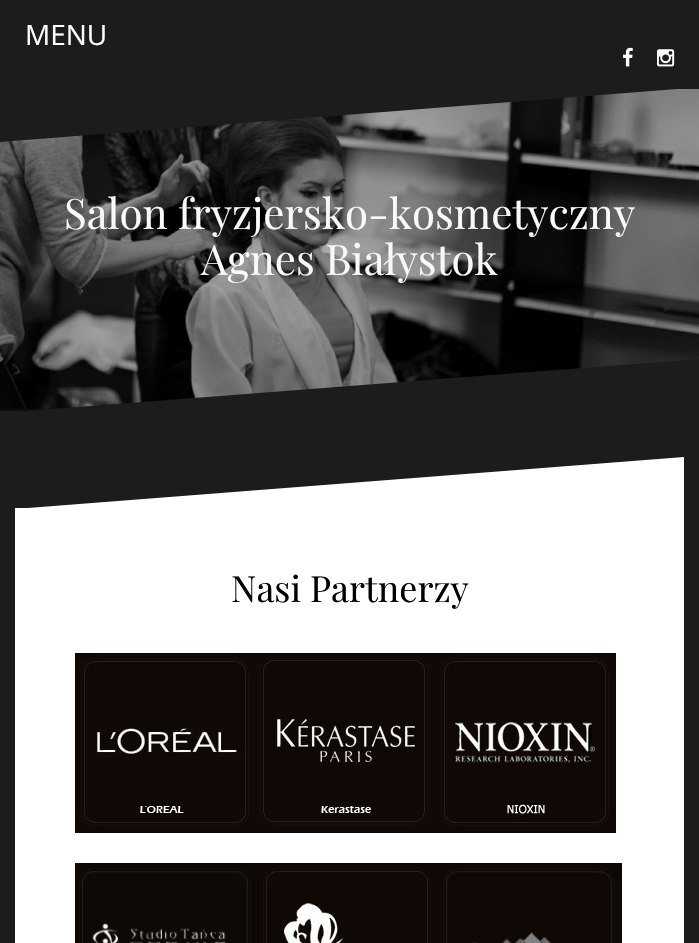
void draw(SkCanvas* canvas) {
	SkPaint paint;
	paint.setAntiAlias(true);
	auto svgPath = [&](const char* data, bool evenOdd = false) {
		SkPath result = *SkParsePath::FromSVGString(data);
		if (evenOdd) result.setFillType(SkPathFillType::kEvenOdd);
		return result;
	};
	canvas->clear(0xff1c1c1c);
	SkFont f1(fontMgr->matchFamilyStyle("Open Sans", SkFontStyle::Normal()), 28);
	f1.setSubpixel(true);
	paint.setColor(0xffffffff);
	canvas->drawString("MENU", 25, 45, f1, paint);
	canvas->drawImageRect(SkImages::DeferredFromEncodedData(SkData::MakeFromFileName("img1.png")), SkRect::MakeXYWH(623, 47, 10, 20), SkSamplingOptions());
	canvas->drawImageRect(SkImages::DeferredFromEncodedData(SkData::MakeFromFileName("img2.png")), SkRect::MakeXYWH(657, 49, 18, 18), SkSamplingOptions());
	canvas->drawImageRect(SkImages::DeferredFromEncodedData(SkData::MakeFromFileName("img3.png")), SkRect::MakeXYWH(0, 89, 699, 322), SkSamplingOptions());
	paint.setColor(0xff1c1c1c);
	canvas->drawPath(svgPath("M0 142V88H690"), paint);
	SkFont f2(fontMgr->matchFamilyStyle("Playfair Display", SkFontStyle::Normal()), 42);
	f2.setSubpixel(true);
	paint.setColor(0xfff9f9f9);
	canvas->drawString("Salon fryzjersko-kosmetyczny", 64, 229, f2, paint);
	canvas->drawString("Agnes Białystok", 201, 275, f2, paint);
	paint.setColor(0xff1c1c1c);
	canvas->drawPath(svgPath("M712 358V413H0"), paint);
	paint.setColor(0xffffffff);
	canvas->drawRect(SkRect::MakeXYWH(15, 508, 669, 435), paint);
	canvas->save();
	canvas->clipRect(SkRect::MakeXYWH(15, 456, 669, 53));
	canvas->drawPath(svgPath("M696 456V509H15"), paint);
	canvas->restore();
	SkFont f3(fontMgr->matchFamilyStyle("Playfair Display", SkFontStyle::Normal()), 36);
	f3.setSubpixel(true);
	paint.setColor(0xff000000);
	canvas->drawString("Nasi Partnerzy", 231, 602, f3, paint);
	canvas->drawImageRect(SkImages::DeferredFromEncodedData(SkData::MakeFromFileName("img4.png")), SkRect::MakeXYWH(75, 653, 181, 180), SkSamplingOptions());
	canvas->drawImageRect(SkImages::DeferredFromEncodedData(SkData::MakeFromFileName("img5.png")), SkRect::MakeXYWH(256, 653, 179, 180), SkSamplingOptions());
	canvas->drawImageRect(SkImages::DeferredFromEncodedData(SkData::MakeFromFileName("img6.png")), SkRect::MakeXYWH(435, 653, 181, 180), SkSamplingOptions());
	canvas->drawImageRect(SkImages::DeferredFromEncodedData(SkData::MakeFromFileName("img7.png")), SkRect::MakeXYWH(75, 863, 183, 80), SkSamplingOptions());
	canvas->drawImageRect(SkImages::DeferredFromEncodedData(SkData::MakeFromFileName("img8.png")), SkRect::MakeXYWH(258, 863, 182, 80), SkSamplingOptions());
	canvas->drawImageRect(SkImages::DeferredFromEncodedData(SkData::MakeFromFileName("img9.png")), SkRect::MakeXYWH(440, 863, 182, 80), SkSamplingOptions());
}
